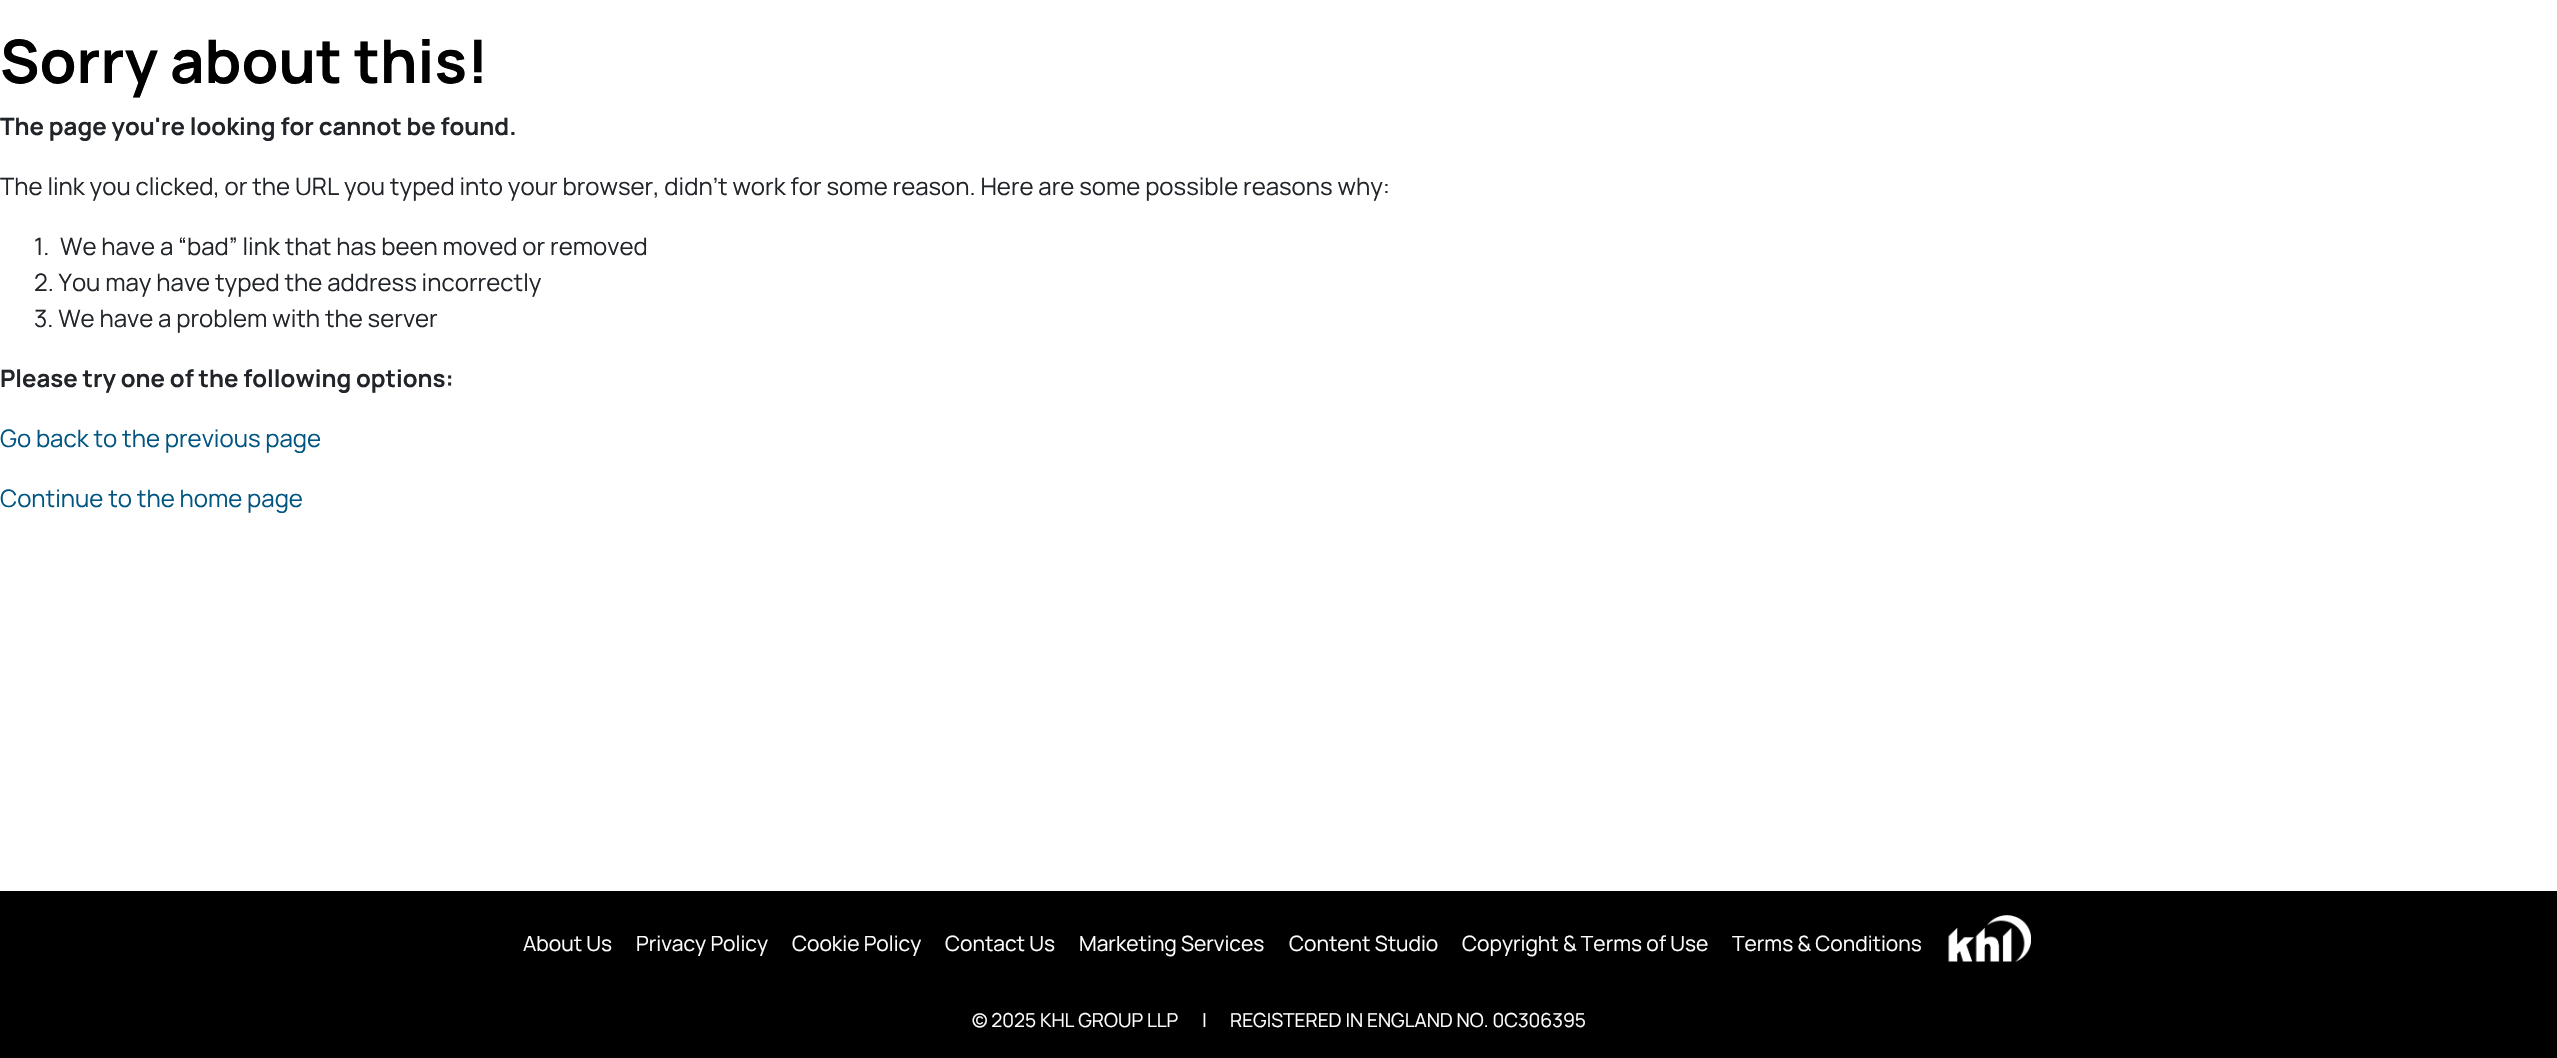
void draw(SkCanvas* canvas) {
	SkPaint paint;
	paint.setAntiAlias(true);
	canvas->clear(0xffffffff);
	SkFont f1(fontMgr->matchFamilyStyle("Manrope", SkFontStyle::Bold()), 60);
	f1.setSubpixel(true);
	paint.setColor(0xff000000);
	canvas->drawString("Sorry about this!", 0, 83, f1, paint);
	SkFont f2(fontMgr->matchFamilyStyle("Manrope", SkFontStyle::Bold()), 24);
	f2.setSubpixel(true);
	paint.setColor(0xff212529);
	canvas->drawString("The page you're looking for cannot be found.", 0, 135, f2, paint);
	SkFont f3(fontMgr->matchFamilyStyle("Manrope", SkFontStyle::Normal()), 24);
	f3.setSubpixel(true);
	canvas->drawString("The link you clicked, or the URL you typed into your browser, didn’t work for some reason. Here are some possible reasons why:", 0, 195, f3, paint);
	canvas->drawString("1.", 34, 255, f3, paint);
	canvas->drawString("We have a “bad” link that has been moved or removed", 60, 255, f3, paint);
	canvas->drawString("2. You may have typed the address incorrectly", 34, 291, f3, paint);
	canvas->drawString("3. We have a problem with the server", 34, 327, f3, paint);
	canvas->drawString("Please try one of the following options:", 0, 387, f2, paint);
	paint.setColor(0xff005581);
	canvas->drawString("Go back to the previous page", 0, 447, f3, paint);
	canvas->drawString("Continue to the home page", 0, 507, f3, paint);
	paint.setColor(0xff000000);
	canvas->drawRect(SkRect::MakeXYWH(0, 891, 2557, 167), paint);
	SkFont f4(fontMgr->matchFamilyStyle("Manrope", SkFontStyle::Normal()), 21);
	f4.setSubpixel(true);
	paint.setColor(0xffffffff);
	canvas->drawString("About Us", 523, 951, f4, paint);
	canvas->drawString("Privacy Policy", 636, 951, f4, paint);
	canvas->drawString("Cookie Policy", 792, 951, f4, paint);
	canvas->drawString("Contact Us", 945, 951, f4, paint);
	canvas->drawString("Marketing Services", 1079, 951, f4, paint);
	canvas->drawString("Content Studio", 1289, 951, f4, paint);
	canvas->drawString("Copyright & Terms of Use", 1462, 951, f4, paint);
	canvas->drawString("Terms & Conditions", 1732, 951, f4, paint);
	canvas->drawImageRect(SkImages::DeferredFromEncodedData(SkData::MakeFromFileName("img1.png")), SkRect::MakeXYWH(1948, 915, 83, 47), SkSamplingOptions());
	SkFont f5(fontMgr->matchFamilyStyle("Manrope", SkFontStyle::Normal()), 19.25);
	f5.setSubpixel(true);
	canvas->drawString("© 2025 KHL GROUP LLP", 972, 1027, f5, paint);
	canvas->drawString("|", 1202, 1027, f5, paint);
	canvas->drawString("REGISTERED IN ENGLAND NO. 0C306395", 1230, 1027, f5, paint);
}
